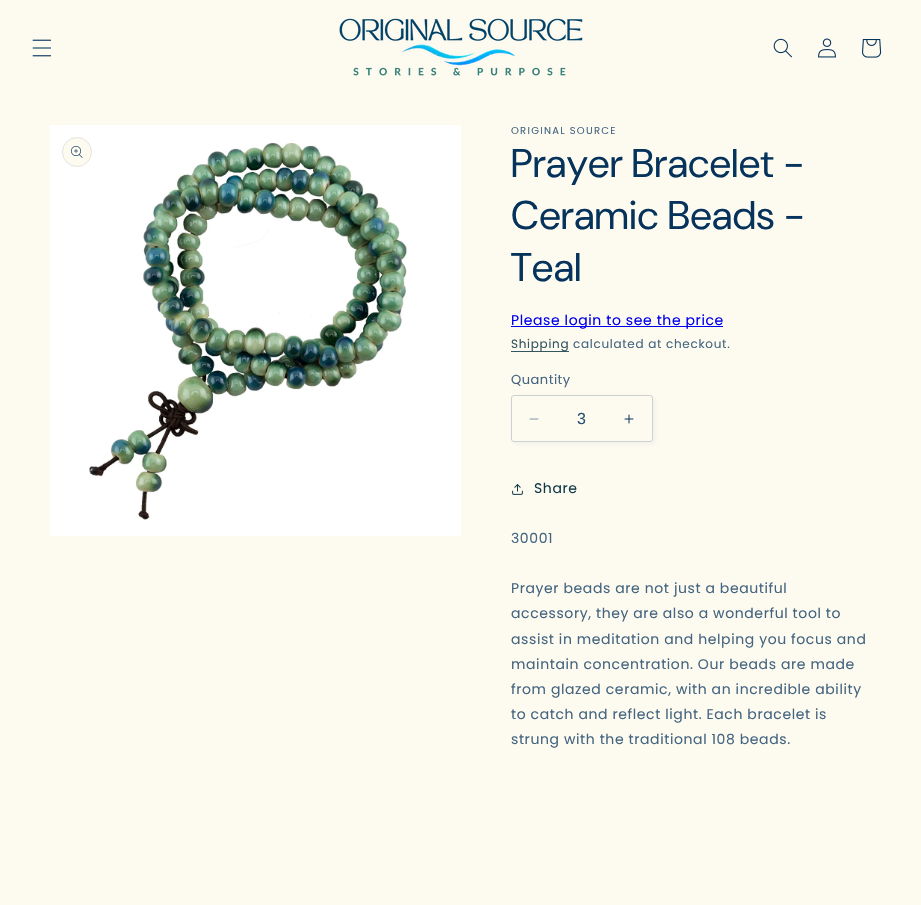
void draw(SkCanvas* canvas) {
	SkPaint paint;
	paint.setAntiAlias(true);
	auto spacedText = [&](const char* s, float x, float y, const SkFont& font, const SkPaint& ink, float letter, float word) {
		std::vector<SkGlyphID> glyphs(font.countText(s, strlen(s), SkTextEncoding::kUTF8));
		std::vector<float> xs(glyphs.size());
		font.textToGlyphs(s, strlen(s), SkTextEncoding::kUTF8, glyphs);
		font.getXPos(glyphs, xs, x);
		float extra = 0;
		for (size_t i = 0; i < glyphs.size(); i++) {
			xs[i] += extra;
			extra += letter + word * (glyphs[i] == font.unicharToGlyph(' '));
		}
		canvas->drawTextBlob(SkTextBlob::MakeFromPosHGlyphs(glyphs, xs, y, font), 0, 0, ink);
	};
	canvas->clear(0xfffdfaf0);
	canvas->drawImageRect(SkImages::DeferredFromEncodedData(SkData::MakeFromFileName("img1.png")), SkRect::MakeXYWH(32, 39, 20, 18), SkSamplingOptions());
	canvas->drawImageRect(SkImages::DeferredFromEncodedData(SkData::MakeFromFileName("img2.png")), SkRect::MakeXYWH(339, 18, 244, 58), SkSamplingOptions());
	canvas->drawImageRect(SkImages::DeferredFromEncodedData(SkData::MakeFromFileName("img3.png")), SkRect::MakeXYWH(773, 38, 19, 20), SkSamplingOptions());
	canvas->drawImageRect(SkImages::DeferredFromEncodedData(SkData::MakeFromFileName("img4.png")), SkRect::MakeXYWH(818, 38, 18, 20), SkSamplingOptions());
	canvas->drawImageRect(SkImages::DeferredFromEncodedData(SkData::MakeFromFileName("img5.png")), SkRect::MakeXYWH(862, 39, 20, 19), SkSamplingOptions());
	canvas->drawImageRect(SkImages::DeferredFromEncodedData(SkData::MakeFromFileName("img6.png")), SkRect::MakeXYWH(50, 125, 411, 411), SkSamplingOptions());
	paint.setColor(0xfffdfaf0);
	canvas->drawCircle(77, 152, 15, paint);
	paint.setStroke(true);
	paint.setStrokeWidth(1);
	paint.setColor(0x1a06335b);
	canvas->drawCircle(77, 152, 14.5, paint);
	canvas->drawImageRect(SkImages::DeferredFromEncodedData(SkData::MakeFromFileName("img7.png")), SkRect::MakeXYWH(71, 146, 12, 12), SkSamplingOptions());
	SkFont f1(fontMgr->matchFamilyStyle("Poppins", SkFontStyle::Normal()), 10);
	f1.setSubpixel(true);
	paint.setStroke(false);
	paint.setColor(0xff446580);
	spacedText("ORIGINAL SOURCE", 511, 134, f1, paint, 1.25, 0);
	SkFont f2(fontMgr->matchFamilyStyle("DM Sans", SkFontStyle::Normal()), 40);
	f2.setSubpixel(true);
	paint.setColor(0xff06335b);
	spacedText("Prayer Bracelet -", 511, 177, f2, paint, 0.6, 0);
	spacedText("Ceramic Beads -", 511, 229, f2, paint, 0.6, 0);
	spacedText("Teal", 511, 281, f2, paint, 0.6, 0);
	paint.setColor(0xff0000ee);
	canvas->drawRect(SkRect::MakeXYWH(511, 326, 212, 1), paint);
	SkFont f3(fontMgr->matchFamilyStyle("Poppins", SkFontStyle::Normal()), 14);
	f3.setSubpixel(true);
	spacedText("Please login to see the price", 511, 325, f3, paint, 0.6, 0);
	paint.setColor(0xff345661);
	canvas->drawRect(SkRect::MakeXYWH(511, 351, 58, 1), paint);
	SkFont f4(fontMgr->matchFamilyStyle("Poppins", SkFontStyle::Normal()), 12);
	f4.setSubpixel(true);
	paint.setColor(0xff335561);
	spacedText("Shipping", 511, 348, f4, paint, 0.7, 0);
	paint.setColor(0xff446580);
	spacedText("calculated at checkout.", 573, 348, f4, paint, 0.7, 0);
	SkFont f5(fontMgr->matchFamilyStyle("Poppins", SkFontStyle::Normal()), 13);
	f5.setSubpixel(true);
	spacedText("Quantity", 511, 384, f5, paint, 0.5, 0);
	paint.setColor(0x0d103948);
	paint.setMaskFilter(SkMaskFilter::MakeBlur(kNormal_SkBlurStyle, 2.5));
	canvas->drawRoundRect(SkRect::MakeXYWH(513, 397, 142, 47), 3, 3, paint);
	paint.setMaskFilter(nullptr);
	paint.setColor(0xfffdfaf0);
	canvas->drawRoundRect(SkRect::MakeXYWH(511, 395, 142, 47), 3, 3, paint);
	canvas->drawImageRect(SkImages::DeferredFromEncodedData(SkData::MakeFromFileName("img8.png")), SkRect::MakeXYWH(529, 418, 10, 2), SkSamplingOptions());
	canvas->drawImageRect(SkImages::DeferredFromEncodedData(SkData::MakeFromFileName("img9.png")), SkRect::MakeXYWH(624, 414, 10, 10), SkSamplingOptions());
	paint.setStroke(true);
	paint.setColor(0xffccd2d2);
	canvas->drawRoundRect(SkRect::MakeXYWH(511.5, 395.5, 141, 46), 2.5, 2.5, paint);
	SkFont f6(fontMgr->matchFamilyStyle("Liberation Sans", SkFontStyle::Normal()), 16);
	f6.setSubpixel(true);
	paint.setStroke(false);
	paint.setColor(0xff2b5171);
	canvas->drawString("3", 577, 424, f6, paint);
	canvas->drawImageRect(SkImages::DeferredFromEncodedData(SkData::MakeFromFileName("img10.png")), SkRect::MakeXYWH(512, 484, 11, 11), SkSamplingOptions());
	paint.setColor(0xff103948);
	spacedText("Share", 534, 493, f3, paint, 0.6, 0);
	paint.setColor(0xff446580);
	spacedText("30001", 511, 543, f3, paint, 0.6, 0);
	spacedText("Prayer beads are not just a beautiful", 511, 593, f3, paint, 0.6, 0);
	spacedText("accessory, they are also a wonderful tool to", 511, 618, f3, paint, 0.6, 0);
	spacedText("assist in meditation and helping you focus and", 511, 644, f3, paint, 0.6, 0);
	spacedText("maintain concentration. Our beads are made", 511, 669, f3, paint, 0.6, 0);
	spacedText("from glazed ceramic, with an incredible ability", 511, 694, f3, paint, 0.6, 0);
	spacedText("to catch and reflect light. Each bracelet is", 511, 719, f3, paint, 0.6, 0);
	spacedText("strung with the traditional 108 beads.", 511, 744, f3, paint, 0.6, 0);
}
